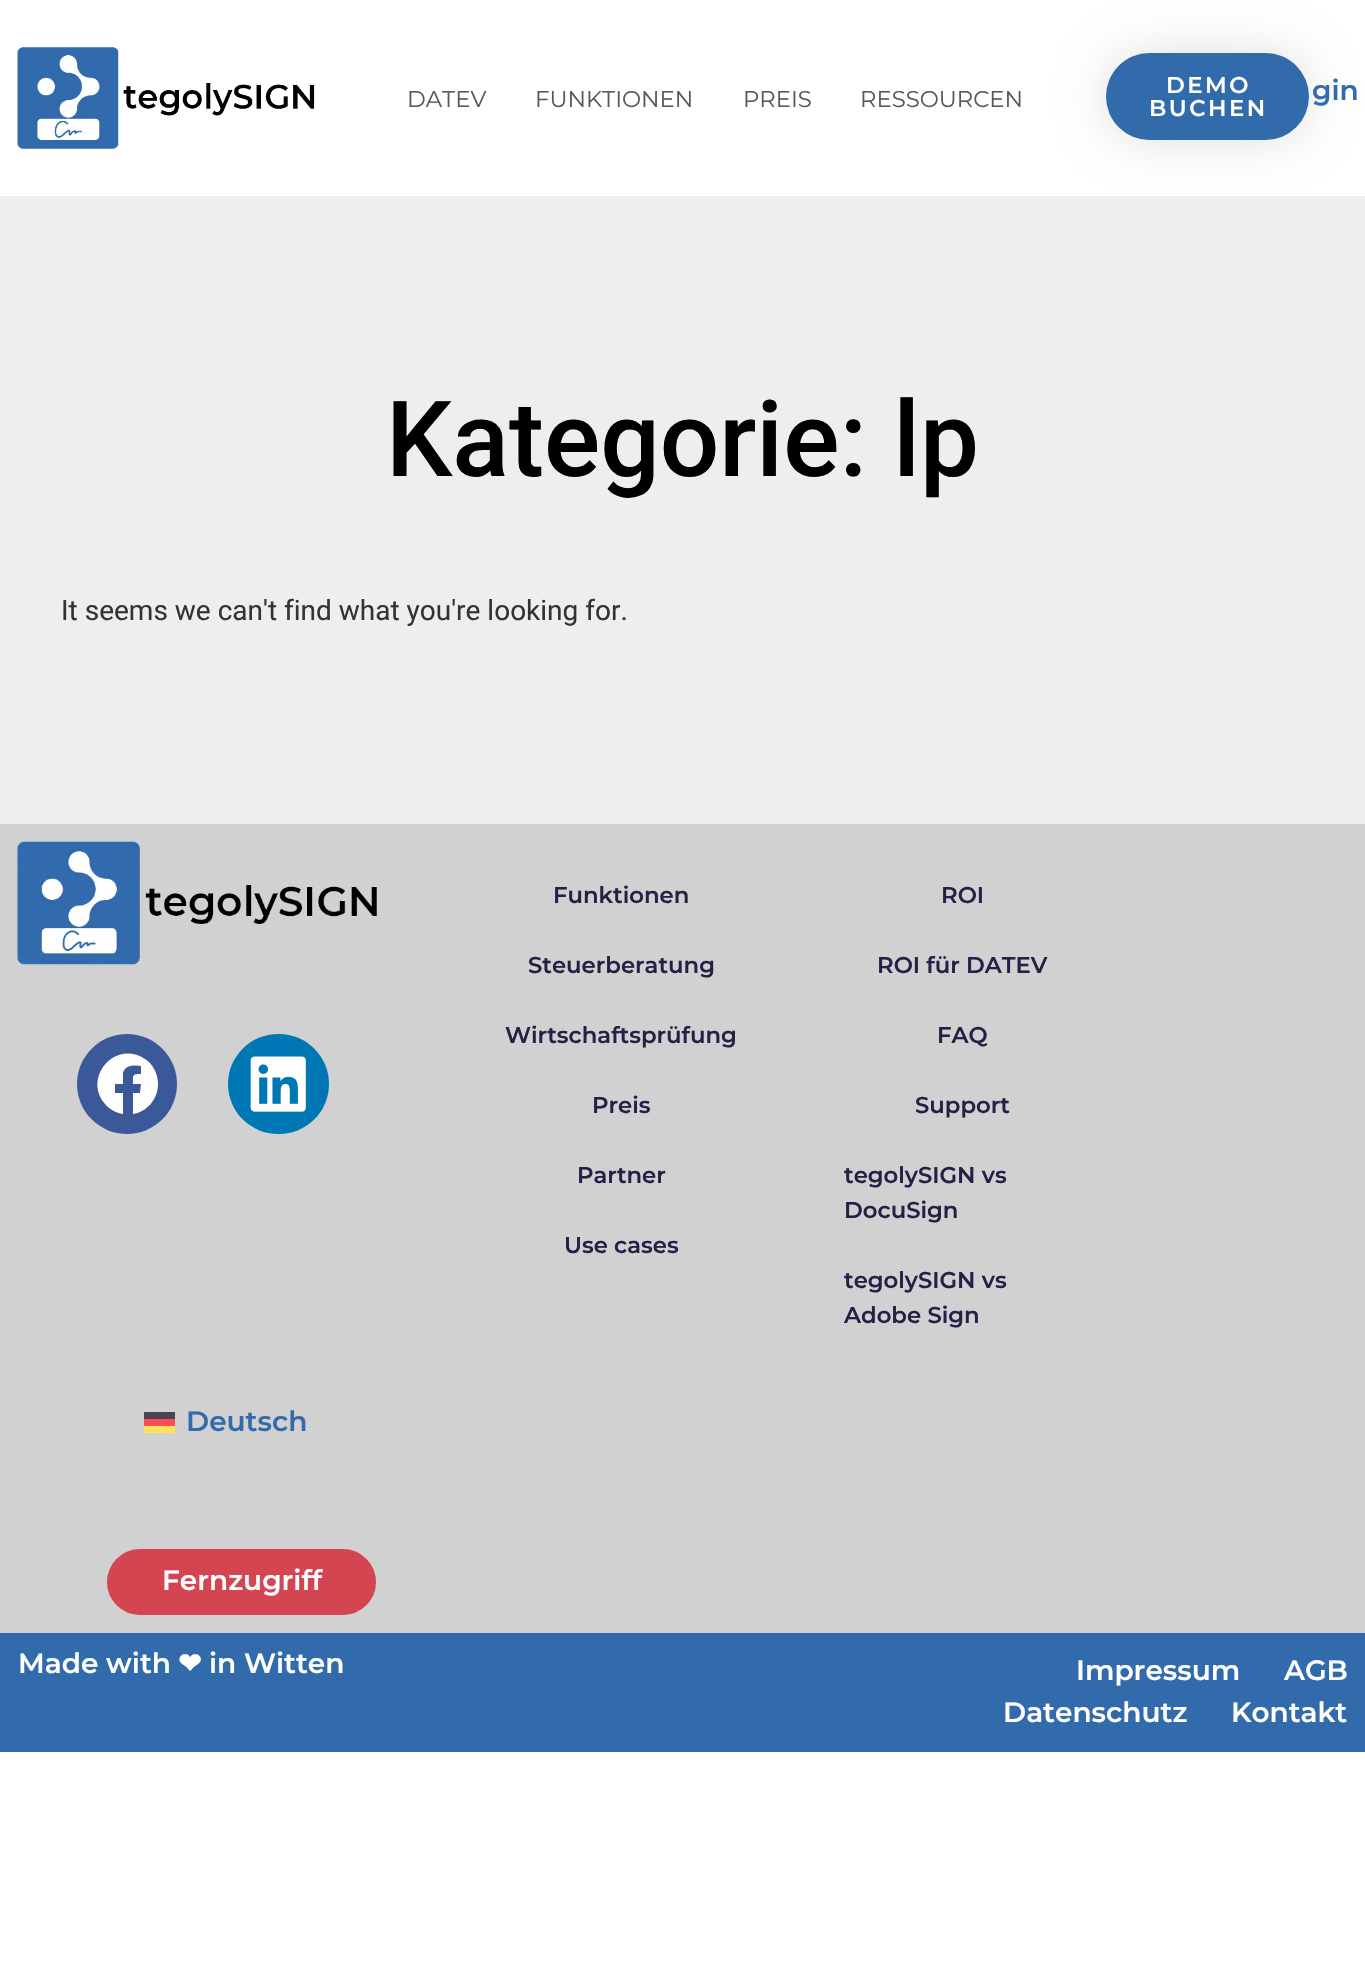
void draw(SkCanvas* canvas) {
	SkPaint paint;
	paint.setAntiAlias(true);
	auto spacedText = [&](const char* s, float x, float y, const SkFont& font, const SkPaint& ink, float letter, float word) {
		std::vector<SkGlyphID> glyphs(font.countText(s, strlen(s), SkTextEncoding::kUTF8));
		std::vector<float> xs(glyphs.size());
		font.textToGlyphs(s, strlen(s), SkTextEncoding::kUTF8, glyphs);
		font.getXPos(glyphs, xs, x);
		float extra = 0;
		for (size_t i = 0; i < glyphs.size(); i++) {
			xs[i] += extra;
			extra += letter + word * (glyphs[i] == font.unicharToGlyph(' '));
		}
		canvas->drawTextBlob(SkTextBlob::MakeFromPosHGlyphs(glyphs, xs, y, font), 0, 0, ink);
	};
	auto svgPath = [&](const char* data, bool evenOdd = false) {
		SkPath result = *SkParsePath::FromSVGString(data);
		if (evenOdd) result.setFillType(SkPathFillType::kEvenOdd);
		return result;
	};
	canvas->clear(0xffffffff);
	canvas->drawImageRect(SkImages::DeferredFromEncodedData(SkData::MakeFromFileName("img1.png")), SkRect::MakeXYWH(17, 47, 298, 102), SkSamplingOptions());
	SkFont f1(fontMgr->matchFamilyStyle("Montserrat", SkFontStyle::Normal()), 22.75);
	f1.setSubpixel(true);
	paint.setColor(0xff54595f);
	canvas->drawString("DATEV", 407, 107, f1, paint);
	canvas->drawString("FUNKTIONEN", 535, 107, f1, paint);
	canvas->drawString("PREIS", 743, 107, f1, paint);
	canvas->drawString("RESSOURCEN", 860, 107, f1, paint);
	paint.setColor(0x1f000000);
	paint.setMaskFilter(SkMaskFilter::MakeBlur(kNormal_SkBlurStyle, 23.5));
	canvas->drawRoundRect(SkRect::MakeXYWH(1106, 53, 203, 87), 43.5, 43.5, paint);
	paint.setMaskFilter(nullptr);
	paint.setColor(0xff316bac);
	canvas->drawRoundRect(SkRect::MakeXYWH(1106, 53, 203, 87), 43.5, 43.5, paint);
	SkFont f2(fontMgr->matchFamilyStyle("Montserrat", SkFontStyle(600, SkFontStyle::kNormal_Width, SkFontStyle::kUpright_Slant)), 22.75);
	f2.setSubpixel(true);
	paint.setColor(0xffffffff);
	spacedText("DEMO", 1166, 93, f2, paint, 2.5, 0);
	spacedText("BUCHEN", 1149, 116, f2, paint, 2.5, 0);
	SkFont f3(fontMgr->matchFamilyStyle("Montserrat", SkFontStyle(600, SkFontStyle::kNormal_Width, SkFontStyle::kUpright_Slant)), 28);
	f3.setSubpixel(true);
	paint.setColor(0xff316bac);
	canvas->drawString("gin", 1312, 100, f3, paint);
	paint.setColor(0xffeeeeee);
	canvas->drawRect(SkRect::MakeXYWH(0, 196, 1365, 628), paint);
	SkFont f4(fontMgr->matchFamilyStyle("Roboto", SkFontStyle(500, SkFontStyle::kNormal_Width, SkFontStyle::kUpright_Slant)), 105);
	f4.setSubpixel(true);
	paint.setColor(0xff000000);
	canvas->drawString("Kategorie: lp", 386, 476, f4, paint);
	SkFont f5(fontMgr->matchFamilyStyle("Roboto", SkFontStyle::Normal()), 28);
	f5.setSubpixel(true);
	paint.setColor(0xff333333);
	canvas->drawString("It seems we can't find what you're looking for.", 61, 620, f5, paint);
	paint.setColor(0xffd1d1d1);
	canvas->drawRect(SkRect::MakeXYWH(0, 824, 1365, 809), paint);
	canvas->drawImageRect(SkImages::DeferredFromEncodedData(SkData::MakeFromFileName("img2.png")), SkRect::MakeXYWH(17, 841, 360, 124), SkSamplingOptions());
	paint.setColor(0xff3b5998);
	canvas->drawCircle(127, 1084, 50, paint);
	paint.setColor(0xffffffff);
	canvas->drawPath(svgPath("M158 1084C158 1099 147 1112 133 1114V1093H140L141 1084H133C133 1075 132 1074 141 1074V1066C134 1065 125 1065 123 1073V1084H115V1093H123V1114C116 1113 109 1109 105 1104C82 1077 116 1039 145 1059C153 1064 158 1074 158 1084Z"), paint);
	paint.setColor(0xff0077b5);
	canvas->drawRoundRect(SkRect::MakeXYWH(228, 1034, 101, 100), 50, 50, paint);
	canvas->drawImageRect(SkImages::DeferredFromEncodedData(SkData::MakeFromFileName("img3.png")), SkRect::MakeXYWH(250, 1056, 56, 56), SkSamplingOptions());
	paint.setColor(0xff232146);
	canvas->drawString("Funktionen", 553, 903, f2, paint);
	canvas->drawString("Steuerberatung", 528, 973, f2, paint);
	canvas->drawString("Wirtschaftsprüfung", 505, 1043, f2, paint);
	canvas->drawString("Preis", 592, 1113, f2, paint);
	canvas->drawString("Partner", 577, 1183, f2, paint);
	canvas->drawString("Use cases", 564, 1253, f2, paint);
	canvas->drawString("ROI", 941, 903, f2, paint);
	canvas->drawString("ROI für DATEV", 877, 973, f2, paint);
	canvas->drawString("FAQ", 937, 1043, f2, paint);
	canvas->drawString("Support", 915, 1113, f2, paint);
	canvas->drawString("tegolySIGN vs", 844, 1183, f2, paint);
	canvas->drawString("DocuSign", 844, 1218, f2, paint);
	canvas->drawString("tegolySIGN vs", 844, 1288, f2, paint);
	canvas->drawString("Adobe Sign", 844, 1323, f2, paint);
	paint.setColor(0xff464655);
	canvas->drawRect(SkRect::MakeXYWH(144, 1412, 31, 7), paint);
	paint.setColor(0xff316bac);
	canvas->drawString("Deutsch", 186, 1431, f3, paint);
	paint.setColor(0xffff4b55);
	canvas->drawRect(SkRect::MakeXYWH(144, 1419, 31, 7), paint);
	paint.setColor(0xffffe15a);
	canvas->drawRect(SkRect::MakeXYWH(144, 1426, 31, 7), paint);
	paint.setColor(0xffd34551);
	canvas->drawRoundRect(SkRect::MakeXYWH(108, 1550, 267, 64), 32, 32, paint);
	paint.setStroke(true);
	paint.setStrokeWidth(2);
	canvas->drawRoundRect(SkRect::MakeXYWH(108, 1550, 267, 64), 32, 32, paint);
	paint.setStroke(false);
	paint.setColor(0xffffffff);
	canvas->drawString("Fernzugriff", 162, 1590, f3, paint);
	paint.setColor(0xff316bac);
	canvas->drawRect(SkRect::MakeXYWH(0, 1633, 1365, 119), paint);
	paint.setColor(0xffffffff);
	canvas->drawString("Made with", 18, 1673, f3, paint);
	SkFont f6(fontMgr->matchFamilyStyle("DejaVu Sans", SkFontStyle::Bold()), 28);
	f6.setSubpixel(true);
	canvas->drawString("❤", 178, 1673, f6, paint);
	canvas->drawString("in Witten", 209, 1673, f3, paint);
	canvas->drawString("Impressum", 1076, 1680, f3, paint);
	canvas->drawString("AGB", 1284, 1680, f3, paint);
	canvas->drawString("Datenschutz", 1003, 1722, f3, paint);
	canvas->drawString("Kontakt", 1231, 1722, f3, paint);
}
